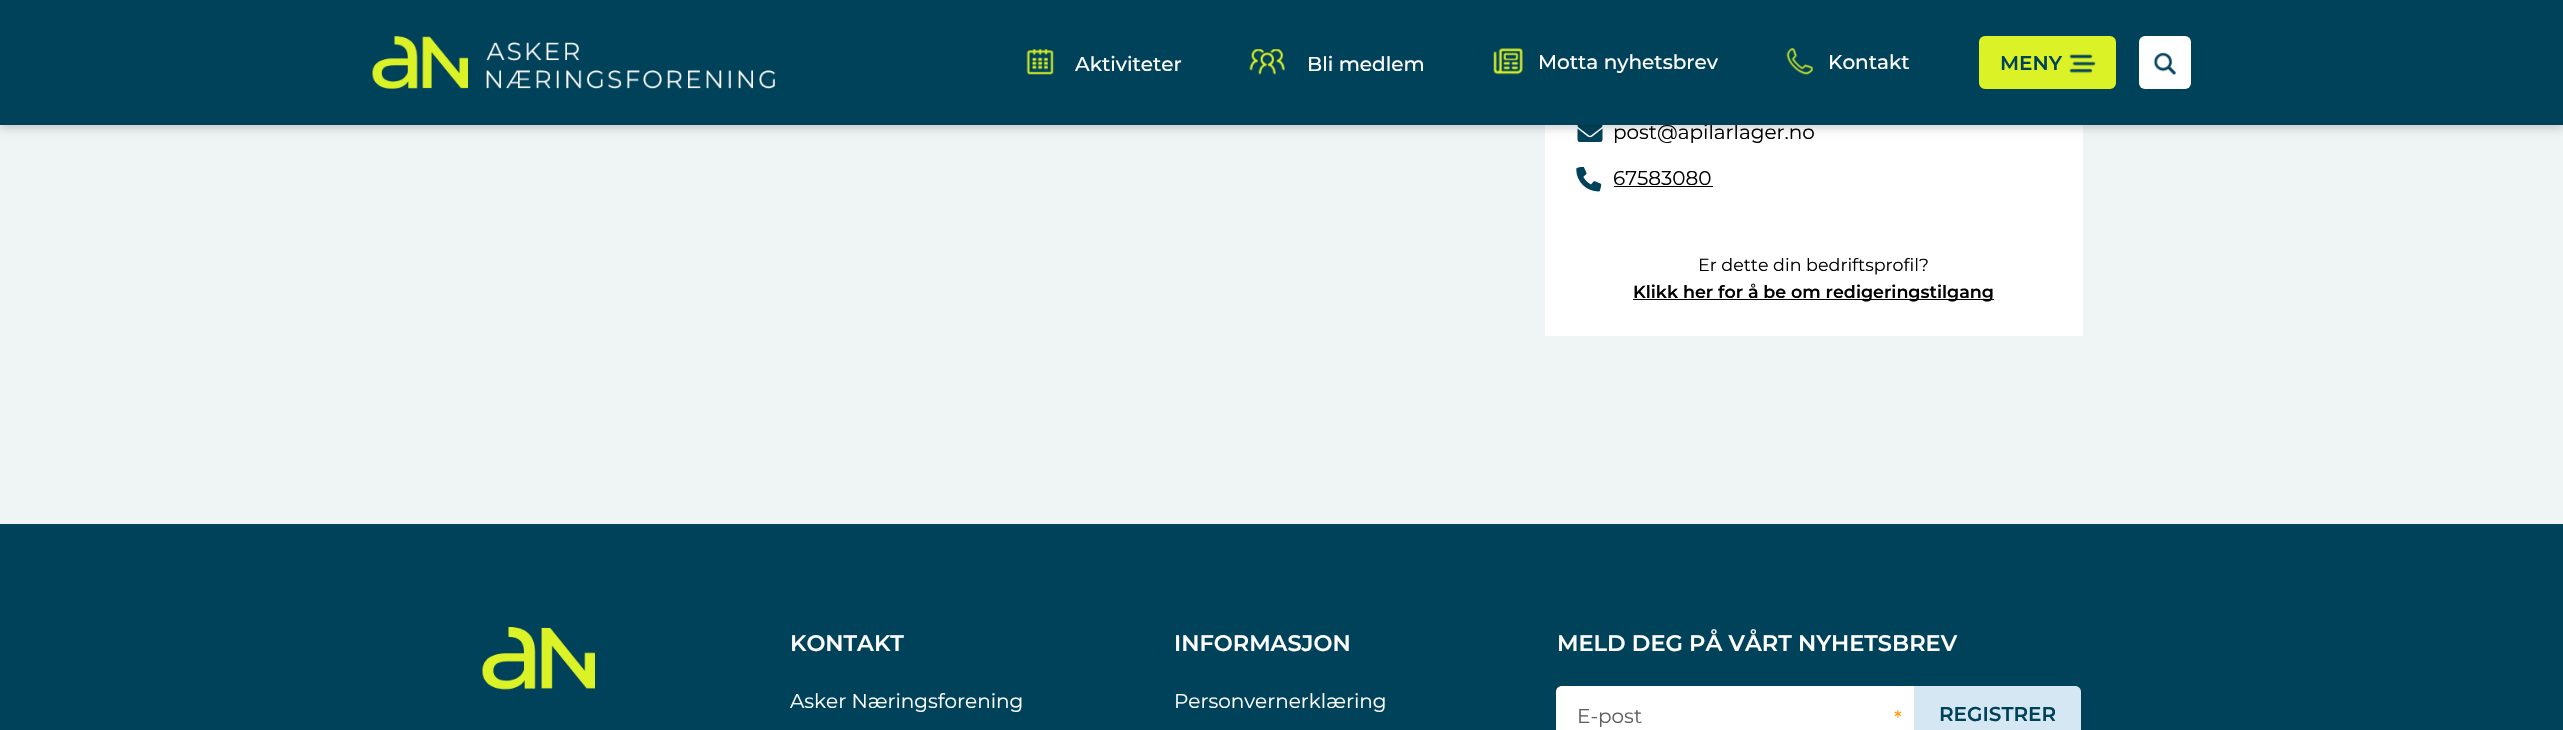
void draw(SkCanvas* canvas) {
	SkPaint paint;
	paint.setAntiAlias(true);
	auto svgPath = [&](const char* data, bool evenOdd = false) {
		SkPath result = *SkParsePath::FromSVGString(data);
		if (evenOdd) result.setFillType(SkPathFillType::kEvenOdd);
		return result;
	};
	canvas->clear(0xff00425a);
	paint.setColor(0xffeff4f5);
	canvas->drawRect(SkRect::MakeXYWH(0, 125, 2563, 399), paint);
	paint.setColor(0xffffffff);
	canvas->drawRect(SkRect::MakeXYWH(1545, 125, 538, 211), paint);
	canvas->drawImageRect(SkImages::DeferredFromEncodedData(SkData::MakeFromFileName("img8.png")), SkRect::MakeXYWH(1577, 125, 26, 17), SkSamplingOptions());
	paint.setColor(0x29000000);
	paint.setMaskFilter(SkMaskFilter::MakeBlur(kNormal_SkBlurStyle, 4));
	canvas->drawRect(SkRect::MakeXYWH(0, 4, 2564, 125), paint);
	paint.setMaskFilter(nullptr);
	SkFont f1(fontMgr->matchFamilyStyle("Montserrat", SkFontStyle::Normal()), 20);
	f1.setSubpixel(true);
	paint.setColor(0xff000000);
	canvas->drawString("post@apilarlager.no", 1613, 139, f1, paint);
	paint.setColor(0xff00425a);
	canvas->drawRect(SkRect::MakeXYWH(0, 0, 2563, 125), paint);
	canvas->drawImageRect(SkImages::DeferredFromEncodedData(SkData::MakeFromFileName("img1.png")), SkRect::MakeXYWH(372, 36, 403, 53), SkSamplingOptions());
	canvas->drawImageRect(SkImages::DeferredFromEncodedData(SkData::MakeFromFileName("img2.png")), SkRect::MakeXYWH(1026, 49, 28, 26), SkSamplingOptions());
	SkFont f2(fontMgr->matchFamilyStyle("Montserrat", SkFontStyle(500, SkFontStyle::kNormal_Width, SkFontStyle::kUpright_Slant)), 20);
	f2.setSubpixel(true);
	paint.setColor(0xffffffff);
	canvas->drawString("Aktiviteter", 1075, 71, f2, paint);
	canvas->drawImageRect(SkImages::DeferredFromEncodedData(SkData::MakeFromFileName("img3.png")), SkRect::MakeXYWH(1249, 49, 36, 26), SkSamplingOptions());
	canvas->drawString("Bli medlem", 1307, 71, f2, paint);
	canvas->drawImageRect(SkImages::DeferredFromEncodedData(SkData::MakeFromFileName("img4.png")), SkRect::MakeXYWH(1493, 48, 30, 27), SkSamplingOptions());
	canvas->drawString("Motta nyhetsbrev", 1538, 69, f2, paint);
	canvas->drawImageRect(SkImages::DeferredFromEncodedData(SkData::MakeFromFileName("img5.png")), SkRect::MakeXYWH(1786, 48, 27, 27), SkSamplingOptions());
	canvas->drawString("Kontakt", 1828, 69, f2, paint);
	paint.setColor(0xffdbf227);
	canvas->drawRoundRect(SkRect::MakeXYWH(1980.5, 37.5, 134, 50), 4.5, 4.5, paint);
	paint.setStroke(true);
	paint.setStrokeWidth(3);
	canvas->drawRoundRect(SkRect::MakeXYWH(1980.5, 37.5, 134, 50), 4.5, 4.5, paint);
	SkFont f3(fontMgr->matchFamilyStyle("Montserrat", SkFontStyle(600, SkFontStyle::kNormal_Width, SkFontStyle::kUpright_Slant)), 20);
	f3.setSubpixel(true);
	paint.setStroke(false);
	paint.setColor(0xff00425a);
	canvas->drawString("MENY", 2000, 70, f3, paint);
	canvas->drawImageRect(SkImages::DeferredFromEncodedData(SkData::MakeFromFileName("img6.png")), SkRect::MakeXYWH(2069, 54, 27, 20), SkSamplingOptions());
	paint.setColor(0xffffffff);
	canvas->drawRoundRect(SkRect::MakeXYWH(2139, 36, 52, 53), 6, 6, paint);
	canvas->drawImageRect(SkImages::DeferredFromEncodedData(SkData::MakeFromFileName("img7.png")), SkRect::MakeXYWH(2153, 52, 23, 23), SkSamplingOptions());
	canvas->drawImageRect(SkImages::DeferredFromEncodedData(SkData::MakeFromFileName("img9.png")), SkRect::MakeXYWH(1576, 167, 26, 25), SkSamplingOptions());
	paint.setColor(0xff000000);
	canvas->drawString("67583080", 1613, 185, f1, paint);
	canvas->drawRect(SkRect::MakeXYWH(1614, 186, 99, 1), paint);
	SkFont f4(fontMgr->matchFamilyStyle("Montserrat", SkFontStyle::Normal()), 17.5);
	f4.setSubpixel(true);
	canvas->drawString("Er dette din bedriftsprofil?", 1698, 271, f4, paint);
	canvas->drawRect(SkRect::MakeXYWH(1633, 299, 361, 1), paint);
	SkFont f5(fontMgr->matchFamilyStyle("Montserrat", SkFontStyle(600, SkFontStyle::kNormal_Width, SkFontStyle::kUpright_Slant)), 17.5);
	f5.setSubpixel(true);
	canvas->drawString("Klikk her for å be om redigeringstilgang", 1633, 298, f5, paint);
	canvas->drawImageRect(SkImages::DeferredFromEncodedData(SkData::MakeFromFileName("img10.png")), SkRect::MakeXYWH(482, 627, 113, 63), SkSamplingOptions());
	SkFont f6(fontMgr->matchFamilyStyle("Montserrat", SkFontStyle(600, SkFontStyle::kNormal_Width, SkFontStyle::kUpright_Slant)), 22.5);
	f6.setSubpixel(true);
	paint.setColor(0xffffffff);
	canvas->drawString("KONTAKT", 790, 651, f6, paint);
	canvas->drawString("Asker Næringsforening", 790, 708, f1, paint);
	canvas->drawString("INFORMASJON", 1174, 651, f6, paint);
	canvas->drawString("Personvernerklæring", 1174, 708, f1, paint);
	canvas->drawString("MELD DEG PÅ VÅRT NYHETSBREV", 1557, 651, f6, paint);
	canvas->drawPath(svgPath("M1562 686H1914V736H1562C1558.5 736 1556 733.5 1556 730V692C1556 688.5 1558.5 686 1562 686Z"), paint);
	paint.setColor(0xff606062);
	canvas->drawString("E-post", 1577, 723, f1, paint);
	paint.setColor(0xffff9300);
	canvas->drawString("*", 1894, 725, f1, paint);
	paint.setColor(0xffd5e7f2);
	canvas->drawPath(svgPath("M1914 686H2075C2078.5 686 2081 688.5 2081 692V730C2081 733.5 2078.5 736 2075 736H1914Z"), paint);
	paint.setColor(0xff00425a);
	canvas->drawString("REGISTRER", 1939, 721, f3, paint);
}
